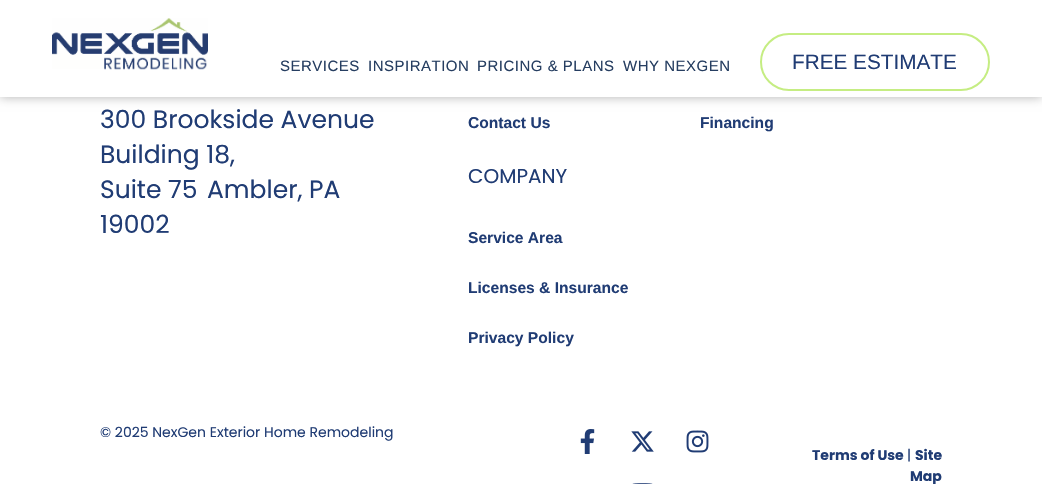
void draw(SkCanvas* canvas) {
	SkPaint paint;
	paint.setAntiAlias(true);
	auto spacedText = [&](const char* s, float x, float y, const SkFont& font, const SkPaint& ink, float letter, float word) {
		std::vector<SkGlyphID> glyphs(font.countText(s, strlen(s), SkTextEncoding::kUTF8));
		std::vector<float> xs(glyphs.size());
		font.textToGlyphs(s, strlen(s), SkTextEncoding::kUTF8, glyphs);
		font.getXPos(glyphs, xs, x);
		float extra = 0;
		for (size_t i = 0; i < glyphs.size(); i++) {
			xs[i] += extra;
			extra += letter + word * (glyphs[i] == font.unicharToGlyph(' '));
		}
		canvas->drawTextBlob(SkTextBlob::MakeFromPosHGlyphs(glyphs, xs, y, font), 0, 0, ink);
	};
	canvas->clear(0xffffffff);
	paint.setColor(0x4d000000);
	paint.setMaskFilter(SkMaskFilter::MakeBlur(kNormal_SkBlurStyle, 5));
	canvas->drawRect(SkRect::MakeXYWH(0, 0, 1042, 97), paint);
	paint.setMaskFilter(nullptr);
	paint.setColor(0xffffffff);
	canvas->drawRect(SkRect::MakeXYWH(0, 0, 1042, 97), paint);
	canvas->drawImageRect(SkImages::DeferredFromEncodedData(SkData::MakeFromFileName("img1.png")), SkRect::MakeXYWH(52, 18, 156, 52), SkSamplingOptions());
	SkFont f1(fontMgr->matchFamilyStyle("Liberation Sans", SkFontStyle::Normal()), 15);
	f1.setSubpixel(true);
	paint.setColor(0xff263e61);
	spacedText("SERVICES", 280, 71, f1, paint, 0.5, 0);
	spacedText("INSPIRATION", 368, 71, f1, paint, 0.5, 0);
	spacedText("PRICING & PLANS", 477, 71, f1, paint, 0.5, 0);
	spacedText("WHY NEXGEN", 623, 71, f1, paint, 0.5, 0);
	paint.setStroke(true);
	paint.setStrokeWidth(2);
	paint.setColor(0xffc5ed82);
	canvas->drawRoundRect(SkRect::MakeXYWH(761, 34, 228, 56), 28, 28, paint);
	SkFont f2(fontMgr->matchFamilyStyle("Liberation Sans", SkFontStyle::Normal()), 20.75);
	f2.setSubpixel(true);
	paint.setStroke(false);
	paint.setColor(0xff203c74);
	canvas->drawString("FREE ESTIMATE", 792, 69, f2, paint);
	SkFont f3(fontMgr->matchFamilyStyle("Poppins", SkFontStyle::Normal()), 25);
	f3.setSubpixel(true);
	canvas->drawString("300 Brookside Avenue", 100, 128, f3, paint);
	canvas->drawString("Building 18,", 100, 163, f3, paint);
	canvas->drawString("Suite 75", 100, 198, f3, paint);
	canvas->drawString("Ambler, PA", 207, 198, f3, paint);
	canvas->drawString("19002", 100, 233, f3, paint);
	SkFont f4(fontMgr->matchFamilyStyle("Liberation Sans", SkFontStyle::Bold()), 15.6);
	f4.setSubpixel(true);
	canvas->drawString("Contact Us", 468, 128, f4, paint);
	canvas->drawString("Financing", 700, 128, f4, paint);
	SkFont f5(fontMgr->matchFamilyStyle("Poppins", SkFontStyle::Normal()), 20);
	f5.setSubpixel(true);
	canvas->drawString("COMPANY", 468, 183, f5, paint);
	canvas->drawString("Service Area", 468, 243, f4, paint);
	canvas->drawString("Licenses & Insurance", 468, 293, f4, paint);
	canvas->drawString("Privacy Policy", 468, 343, f4, paint);
	SkFont f6(fontMgr->matchFamilyStyle("Poppins", SkFontStyle::Normal()), 14);
	f6.setSubpixel(true);
	canvas->drawString("© 2025 NexGen Exterior Home Remodeling", 100, 437, f6, paint);
	canvas->drawImageRect(SkImages::DeferredFromEncodedData(SkData::MakeFromFileName("img2.png")), SkRect::MakeXYWH(580, 429, 15, 25), SkSamplingOptions());
	canvas->drawImageRect(SkImages::DeferredFromEncodedData(SkData::MakeFromFileName("img3.png")), SkRect::MakeXYWH(631, 431, 23, 21), SkSamplingOptions());
	canvas->drawImageRect(SkImages::DeferredFromEncodedData(SkData::MakeFromFileName("img4.png")), SkRect::MakeXYWH(686, 430, 23, 23), SkSamplingOptions());
	canvas->drawImageRect(SkImages::DeferredFromEncodedData(SkData::MakeFromFileName("img5.png")), SkRect::MakeXYWH(632, 483, 21, 1), SkSamplingOptions());
	SkFont f7(fontMgr->matchFamilyStyle("Poppins", SkFontStyle::Bold()), 14);
	f7.setSubpixel(true);
	canvas->drawString("Terms of Use", 812, 460, f7, paint);
	canvas->drawString("|", 907, 460, f6, paint);
	canvas->drawString("Site", 915, 460, f7, paint);
	canvas->drawString("Map", 910, 481, f7, paint);
}
